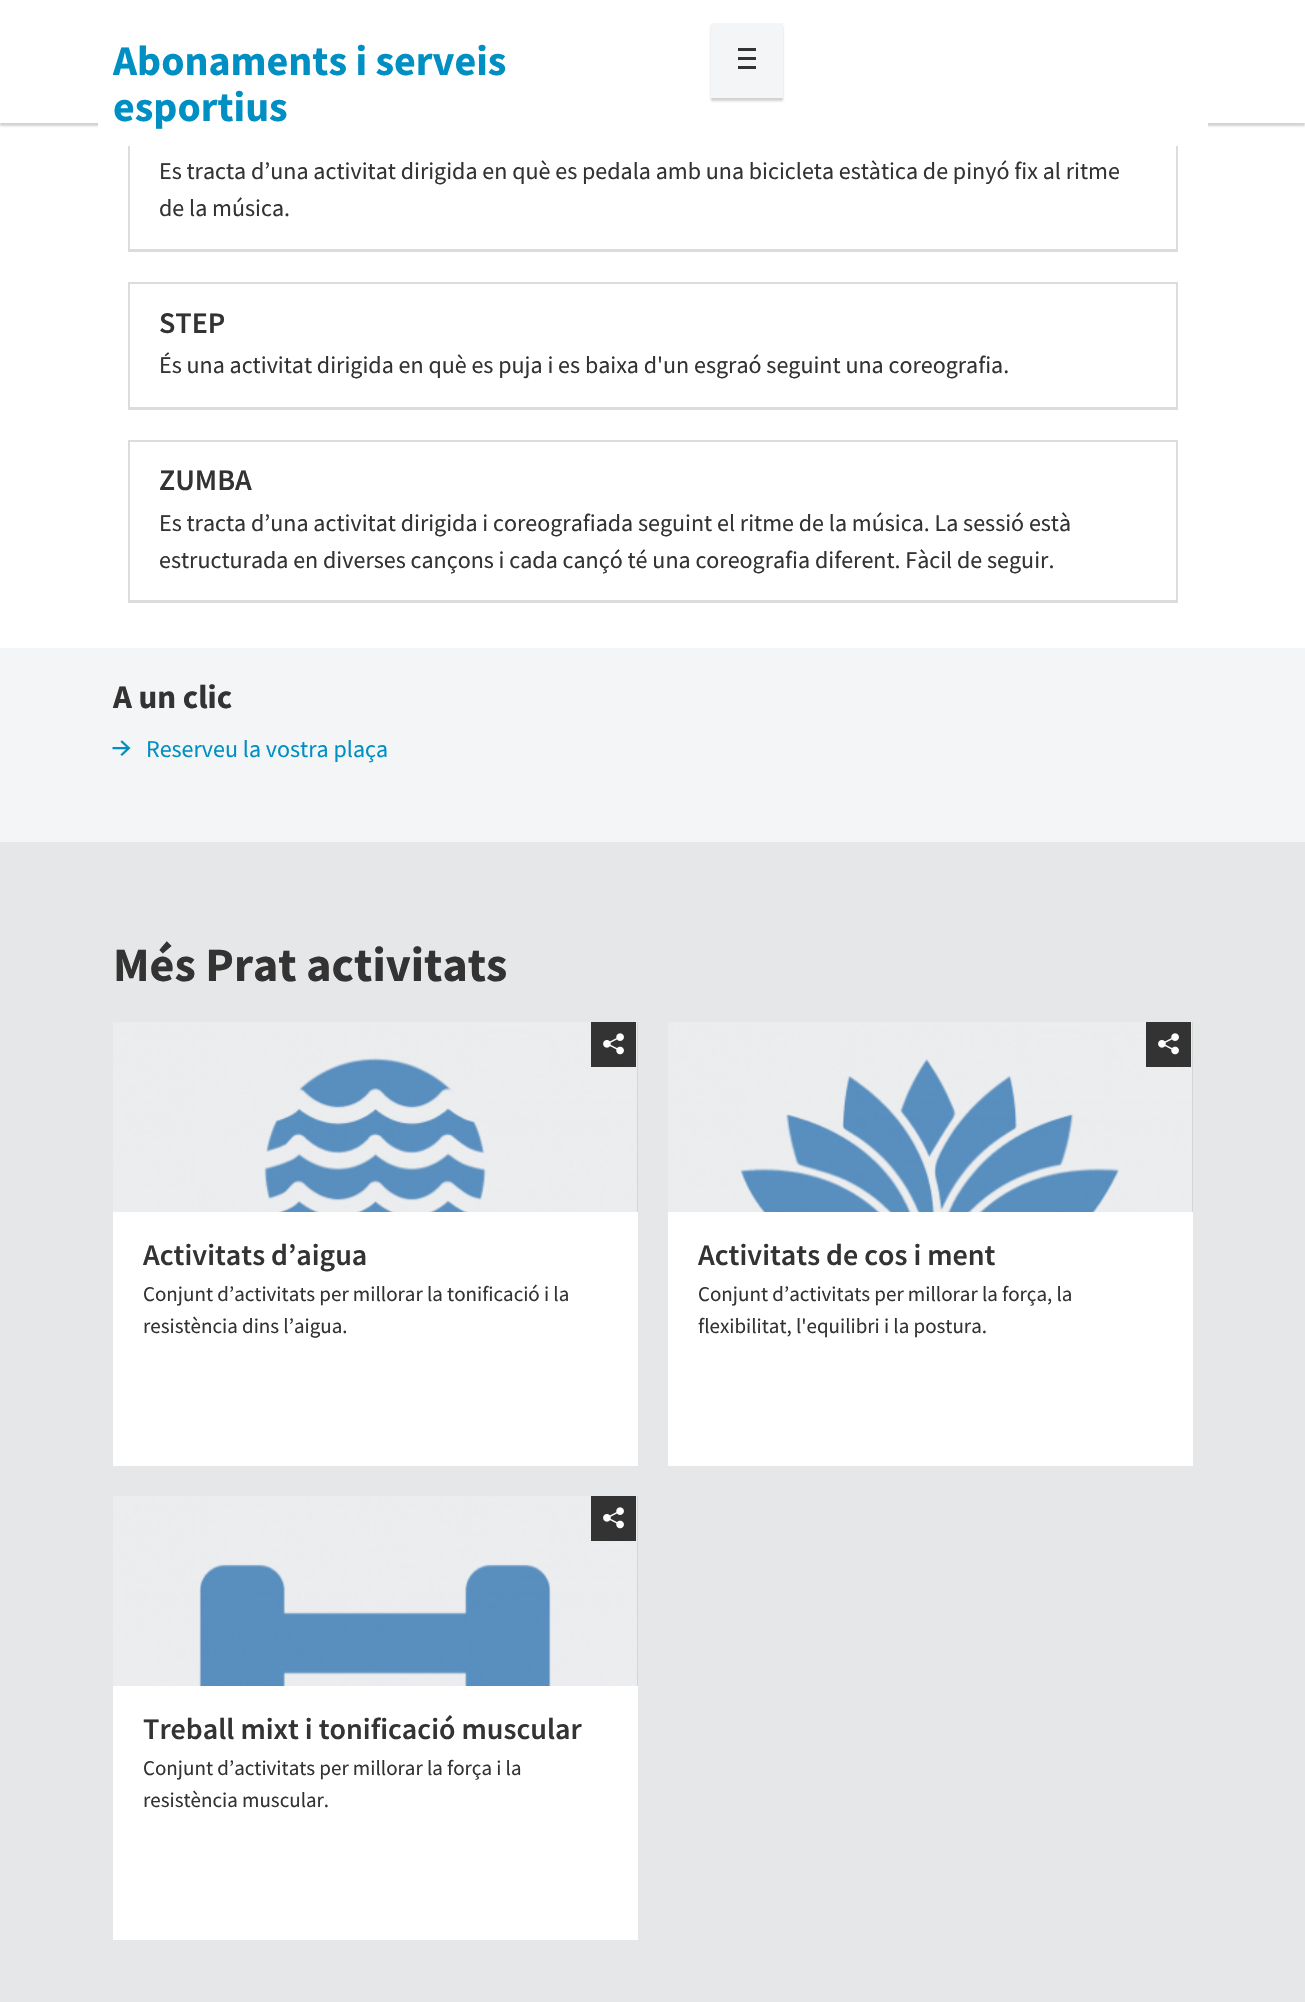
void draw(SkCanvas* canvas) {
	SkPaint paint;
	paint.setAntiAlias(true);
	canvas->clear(0xffffffff);
	paint.setColor(0xffd2d2d2);
	paint.setMaskFilter(SkMaskFilter::MakeBlur(kNormal_SkBlurStyle, 1));
	canvas->drawRect(SkRect::MakeXYWH(0, 3, 1305, 123), paint);
	paint.setMaskFilter(nullptr);
	paint.setColor(0xffffffff);
	canvas->drawRect(SkRect::MakeXYWH(0, 1, 1305, 122), paint);
	canvas->drawRect(SkRect::MakeXYWH(98, 123, 1110, 5), paint);
	SkFont f1(fontMgr->matchFamilyStyle("Source Sans Pro", SkFontStyle::Bold()), 42);
	f1.setSubpixel(true);
	paint.setColor(0xff008fc3);
	canvas->drawString("Abonaments i serveis", 113, 75, f1, paint);
	canvas->drawString("esportius", 113, 121, f1, paint);
	paint.setColor(0xffd2d2d2);
	paint.setMaskFilter(SkMaskFilter::MakeBlur(kNormal_SkBlurStyle, 1));
	canvas->drawRect(SkRect::MakeXYWH(711, 26, 72, 75), paint);
	paint.setMaskFilter(nullptr);
	paint.setColor(0xfff4f5f6);
	canvas->drawRect(SkRect::MakeXYWH(711, 23, 72, 75), paint);
	paint.setColor(0xff333333);
	canvas->drawRect(SkRect::MakeXYWH(738, 57, 18, 3), paint);
	canvas->drawRect(SkRect::MakeXYWH(738, 48, 18, 3), paint);
	canvas->drawRect(SkRect::MakeXYWH(738, 66, 18, 3), paint);
	paint.setColor(0xffdcdcdc);
	canvas->drawRect(SkRect::MakeXYWH(1176, 146, 2, 106), paint);
	canvas->drawRect(SkRect::MakeXYWH(128, 249, 1050, 3), paint);
	canvas->drawRect(SkRect::MakeXYWH(128, 146, 2, 106), paint);
	SkFont f2(fontMgr->matchFamilyStyle("Source Sans Pro", SkFontStyle::Normal()), 24);
	f2.setSubpixel(true);
	paint.setColor(0xff333333);
	canvas->drawString("Es tracta d’una activitat dirigida en què es pedala amb una bicicleta estàtica de pinyó fix al ritme", 159, 179, f2, paint);
	canvas->drawString("de la música.", 159, 216, f2, paint);
	paint.setColor(0xffdcdcdc);
	canvas->drawRect(SkRect::MakeXYWH(128, 282, 1050, 2), paint);
	canvas->drawRect(SkRect::MakeXYWH(1176, 282, 2, 128), paint);
	canvas->drawRect(SkRect::MakeXYWH(128, 407, 1050, 3), paint);
	canvas->drawRect(SkRect::MakeXYWH(128, 282, 2, 128), paint);
	SkFont f3(fontMgr->matchFamilyStyle("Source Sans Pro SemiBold", SkFontStyle(600, SkFontStyle::kNormal_Width, SkFontStyle::kUpright_Slant)), 30);
	f3.setSubpixel(true);
	paint.setColor(0xff333333);
	canvas->drawString("STEP", 159, 333, f3, paint);
	canvas->drawString("És una activitat dirigida en què es puja i es baixa d'un esgraó seguint una coreografia.", 159, 373, f2, paint);
	paint.setColor(0xffdcdcdc);
	canvas->drawRect(SkRect::MakeXYWH(128, 440, 1050, 2), paint);
	canvas->drawRect(SkRect::MakeXYWH(1176, 440, 2, 163), paint);
	canvas->drawRect(SkRect::MakeXYWH(128, 600, 1050, 3), paint);
	canvas->drawRect(SkRect::MakeXYWH(128, 440, 2, 163), paint);
	paint.setColor(0xff333333);
	canvas->drawString("ZUMBA", 159, 490, f3, paint);
	canvas->drawString("Es tracta d’una activitat dirigida i coreografiada seguint el ritme de la música. La sessió està", 159, 531, f2, paint);
	canvas->drawString("estructurada en diverses cançons i cada cançó té una coreografia diferent. Fàcil de seguir.", 159, 568, f2, paint);
	paint.setColor(0xfff4f5f6);
	canvas->drawRect(SkRect::MakeXYWH(0, 648, 1305, 194), paint);
	SkFont f4(fontMgr->matchFamilyStyle("Source Sans Pro", SkFontStyle::Bold()), 33);
	f4.setSubpixel(true);
	paint.setColor(0xff333333);
	canvas->drawString("A un clic", 113, 708, f4, paint);
	canvas->drawImageRect(SkImages::DeferredFromEncodedData(SkData::MakeFromFileName("img1.png")), SkRect::MakeXYWH(112, 740, 19, 16), SkSamplingOptions());
	paint.setColor(0xff008fc3);
	canvas->drawString("Reserveu la vostra plaça", 146, 757, f2, paint);
	paint.setColor(0xffe6e7e8);
	canvas->drawRect(SkRect::MakeXYWH(0, 842, 1305, 1160), paint);
	SkFont f5(fontMgr->matchFamilyStyle("Source Sans Pro", SkFontStyle::Bold()), 48);
	f5.setSubpixel(true);
	paint.setColor(0xff333333);
	canvas->drawString("Més Prat activitats", 113, 981, f5, paint);
	paint.setColor(0xffffffff);
	canvas->drawRect(SkRect::MakeXYWH(113, 1212, 525, 254), paint);
	paint.setColor(0xffcccccc);
	canvas->drawRect(SkRect::MakeXYWH(637, 1022, 1, 190), paint);
	canvas->drawImageRect(SkImages::DeferredFromEncodedData(SkData::MakeFromFileName("img2.png")), SkRect::MakeXYWH(113, 1022, 525, 190), SkSamplingOptions());
	paint.setColor(0xff333333);
	canvas->drawRect(SkRect::MakeXYWH(591, 1022, 45, 45), paint);
	canvas->drawImageRect(SkImages::DeferredFromEncodedData(SkData::MakeFromFileName("img3.png")), SkRect::MakeXYWH(603, 1033, 21, 22), SkSamplingOptions());
	canvas->drawString("Activitats d’aigua", 143, 1265, f3, paint);
	SkFont f6(fontMgr->matchFamilyStyle("Source Sans Pro", SkFontStyle::Normal()), 21);
	f6.setSubpixel(true);
	canvas->drawString("Conjunt d’activitats per millorar la tonificació i la", 143, 1301, f6, paint);
	canvas->drawString("resistència dins l’aigua.", 143, 1333, f6, paint);
	paint.setColor(0xffffffff);
	canvas->drawRect(SkRect::MakeXYWH(668, 1212, 525, 254), paint);
	paint.setColor(0xffcccccc);
	canvas->drawRect(SkRect::MakeXYWH(1192, 1022, 1, 190), paint);
	canvas->drawImageRect(SkImages::DeferredFromEncodedData(SkData::MakeFromFileName("img4.png")), SkRect::MakeXYWH(668, 1022, 525, 190), SkSamplingOptions());
	paint.setColor(0xff333333);
	canvas->drawRect(SkRect::MakeXYWH(1146, 1022, 45, 45), paint);
	canvas->drawImageRect(SkImages::DeferredFromEncodedData(SkData::MakeFromFileName("img3.png")), SkRect::MakeXYWH(1158, 1033, 21, 22), SkSamplingOptions());
	canvas->drawString("Activitats de cos i ment", 698, 1265, f3, paint);
	canvas->drawString("Conjunt d’activitats per millorar la força, la", 698, 1301, f6, paint);
	canvas->drawString("flexibilitat, l'equilibri i la postura.", 698, 1333, f6, paint);
	paint.setColor(0xffffffff);
	canvas->drawRect(SkRect::MakeXYWH(113, 1686, 525, 254), paint);
	paint.setColor(0xffcccccc);
	canvas->drawRect(SkRect::MakeXYWH(637, 1496, 1, 190), paint);
	canvas->drawImageRect(SkImages::DeferredFromEncodedData(SkData::MakeFromFileName("img5.png")), SkRect::MakeXYWH(113, 1496, 525, 190), SkSamplingOptions());
	paint.setColor(0xff333333);
	canvas->drawRect(SkRect::MakeXYWH(591, 1496, 45, 45), paint);
	canvas->drawImageRect(SkImages::DeferredFromEncodedData(SkData::MakeFromFileName("img3.png")), SkRect::MakeXYWH(603, 1507, 21, 22), SkSamplingOptions());
	canvas->drawString("Treball mixt i tonificació muscular", 143, 1739, f3, paint);
	canvas->drawString("Conjunt d’activitats per millorar la força i la", 143, 1775, f6, paint);
	canvas->drawString("resistència muscular.", 143, 1807, f6, paint);
}
